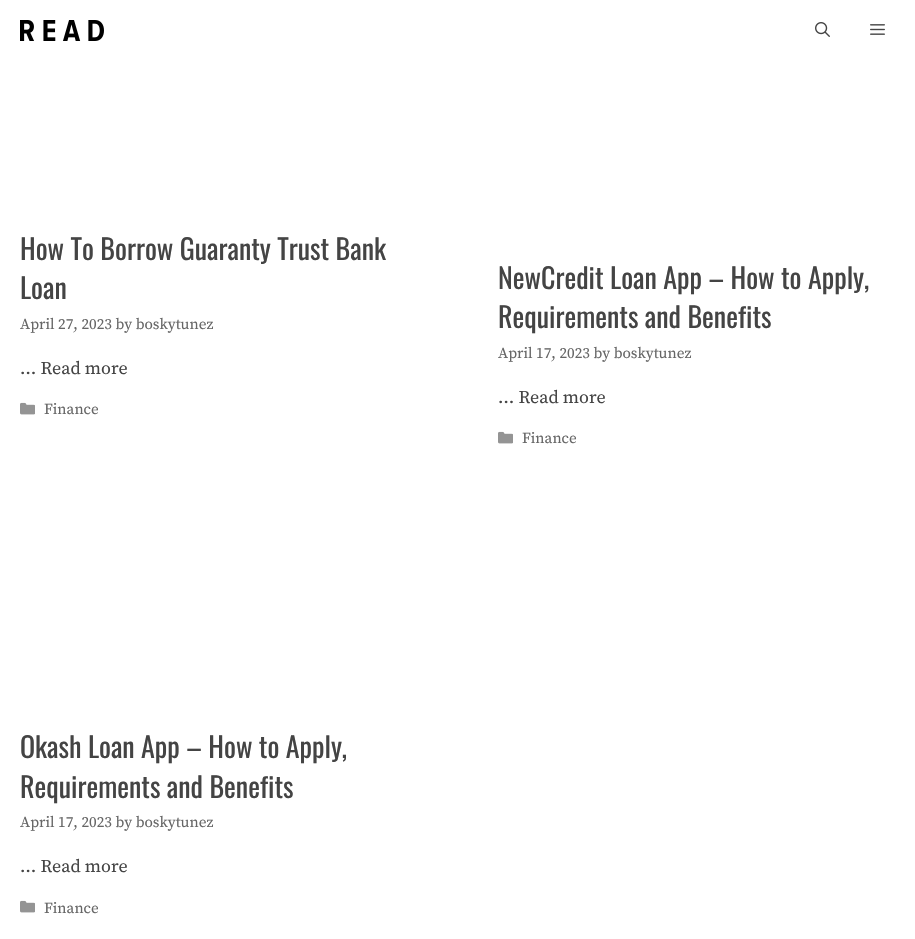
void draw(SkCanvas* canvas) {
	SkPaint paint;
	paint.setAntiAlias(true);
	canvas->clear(0xffffffff);
	canvas->drawImageRect(SkImages::DeferredFromEncodedData(SkData::MakeFromFileName("img1.png")), SkRect::MakeXYWH(20, 20, 84, 21), SkSamplingOptions());
	canvas->drawImageRect(SkImages::DeferredFromEncodedData(SkData::MakeFromFileName("img2.png")), SkRect::MakeXYWH(815, 22, 15, 15), SkSamplingOptions());
	canvas->drawImageRect(SkImages::DeferredFromEncodedData(SkData::MakeFromFileName("img3.png")), SkRect::MakeXYWH(870, 24, 15, 11), SkSamplingOptions());
	SkFont f1(fontMgr->matchFamilyStyle("Oswald", SkFontStyle::Normal()), 28);
	f1.setSubpixel(true);
	paint.setColor(0xff444444);
	canvas->drawString("How To Borrow Guaranty Trust Bank", 20, 260, f1, paint);
	canvas->drawString("Loan", 20, 299, f1, paint);
	SkFont f2(fontMgr->matchFamilyStyle("Source Serif Pro", SkFontStyle::Normal()), 15.25);
	f2.setSubpixel(true);
	paint.setColor(0xff666666);
	canvas->drawString("April 27, 2023 by boskytunez", 20, 329, f2, paint);
	SkFont f3(fontMgr->matchFamilyStyle("Source Serif Pro", SkFontStyle::Normal()), 18);
	f3.setSubpixel(true);
	paint.setColor(0xff444444);
	canvas->drawString("… Read more", 20, 374, f3, paint);
	canvas->drawImageRect(SkImages::DeferredFromEncodedData(SkData::MakeFromFileName("img4.png")), SkRect::MakeXYWH(20, 402, 15, 13), SkSamplingOptions());
	paint.setColor(0xff666666);
	canvas->drawString("Finance", 44, 414, f2, paint);
	paint.setColor(0xff444444);
	canvas->drawString("NewCredit Loan App – How to Apply,", 498, 289, f1, paint);
	canvas->drawString("Requirements and Benefits", 498, 328, f1, paint);
	paint.setColor(0xff666666);
	canvas->drawString("April 17, 2023 by boskytunez", 498, 358, f2, paint);
	paint.setColor(0xff444444);
	canvas->drawString("… Read more", 498, 403, f3, paint);
	canvas->drawImageRect(SkImages::DeferredFromEncodedData(SkData::MakeFromFileName("img4.png")), SkRect::MakeXYWH(498, 431, 15, 13), SkSamplingOptions());
	paint.setColor(0xff666666);
	canvas->drawString("Finance", 522, 443, f2, paint);
	paint.setColor(0xff444444);
	canvas->drawString("Okash Loan App – How to Apply,", 20, 758, f1, paint);
	canvas->drawString("Requirements and Benefits", 20, 798, f1, paint);
	paint.setColor(0xff666666);
	canvas->drawString("April 17, 2023 by boskytunez", 20, 827, f2, paint);
	paint.setColor(0xff444444);
	canvas->drawString("… Read more", 20, 872, f3, paint);
	canvas->drawImageRect(SkImages::DeferredFromEncodedData(SkData::MakeFromFileName("img4.png")), SkRect::MakeXYWH(20, 900, 15, 13), SkSamplingOptions());
	paint.setColor(0xff666666);
	canvas->drawString("Finance", 44, 913, f2, paint);
}
